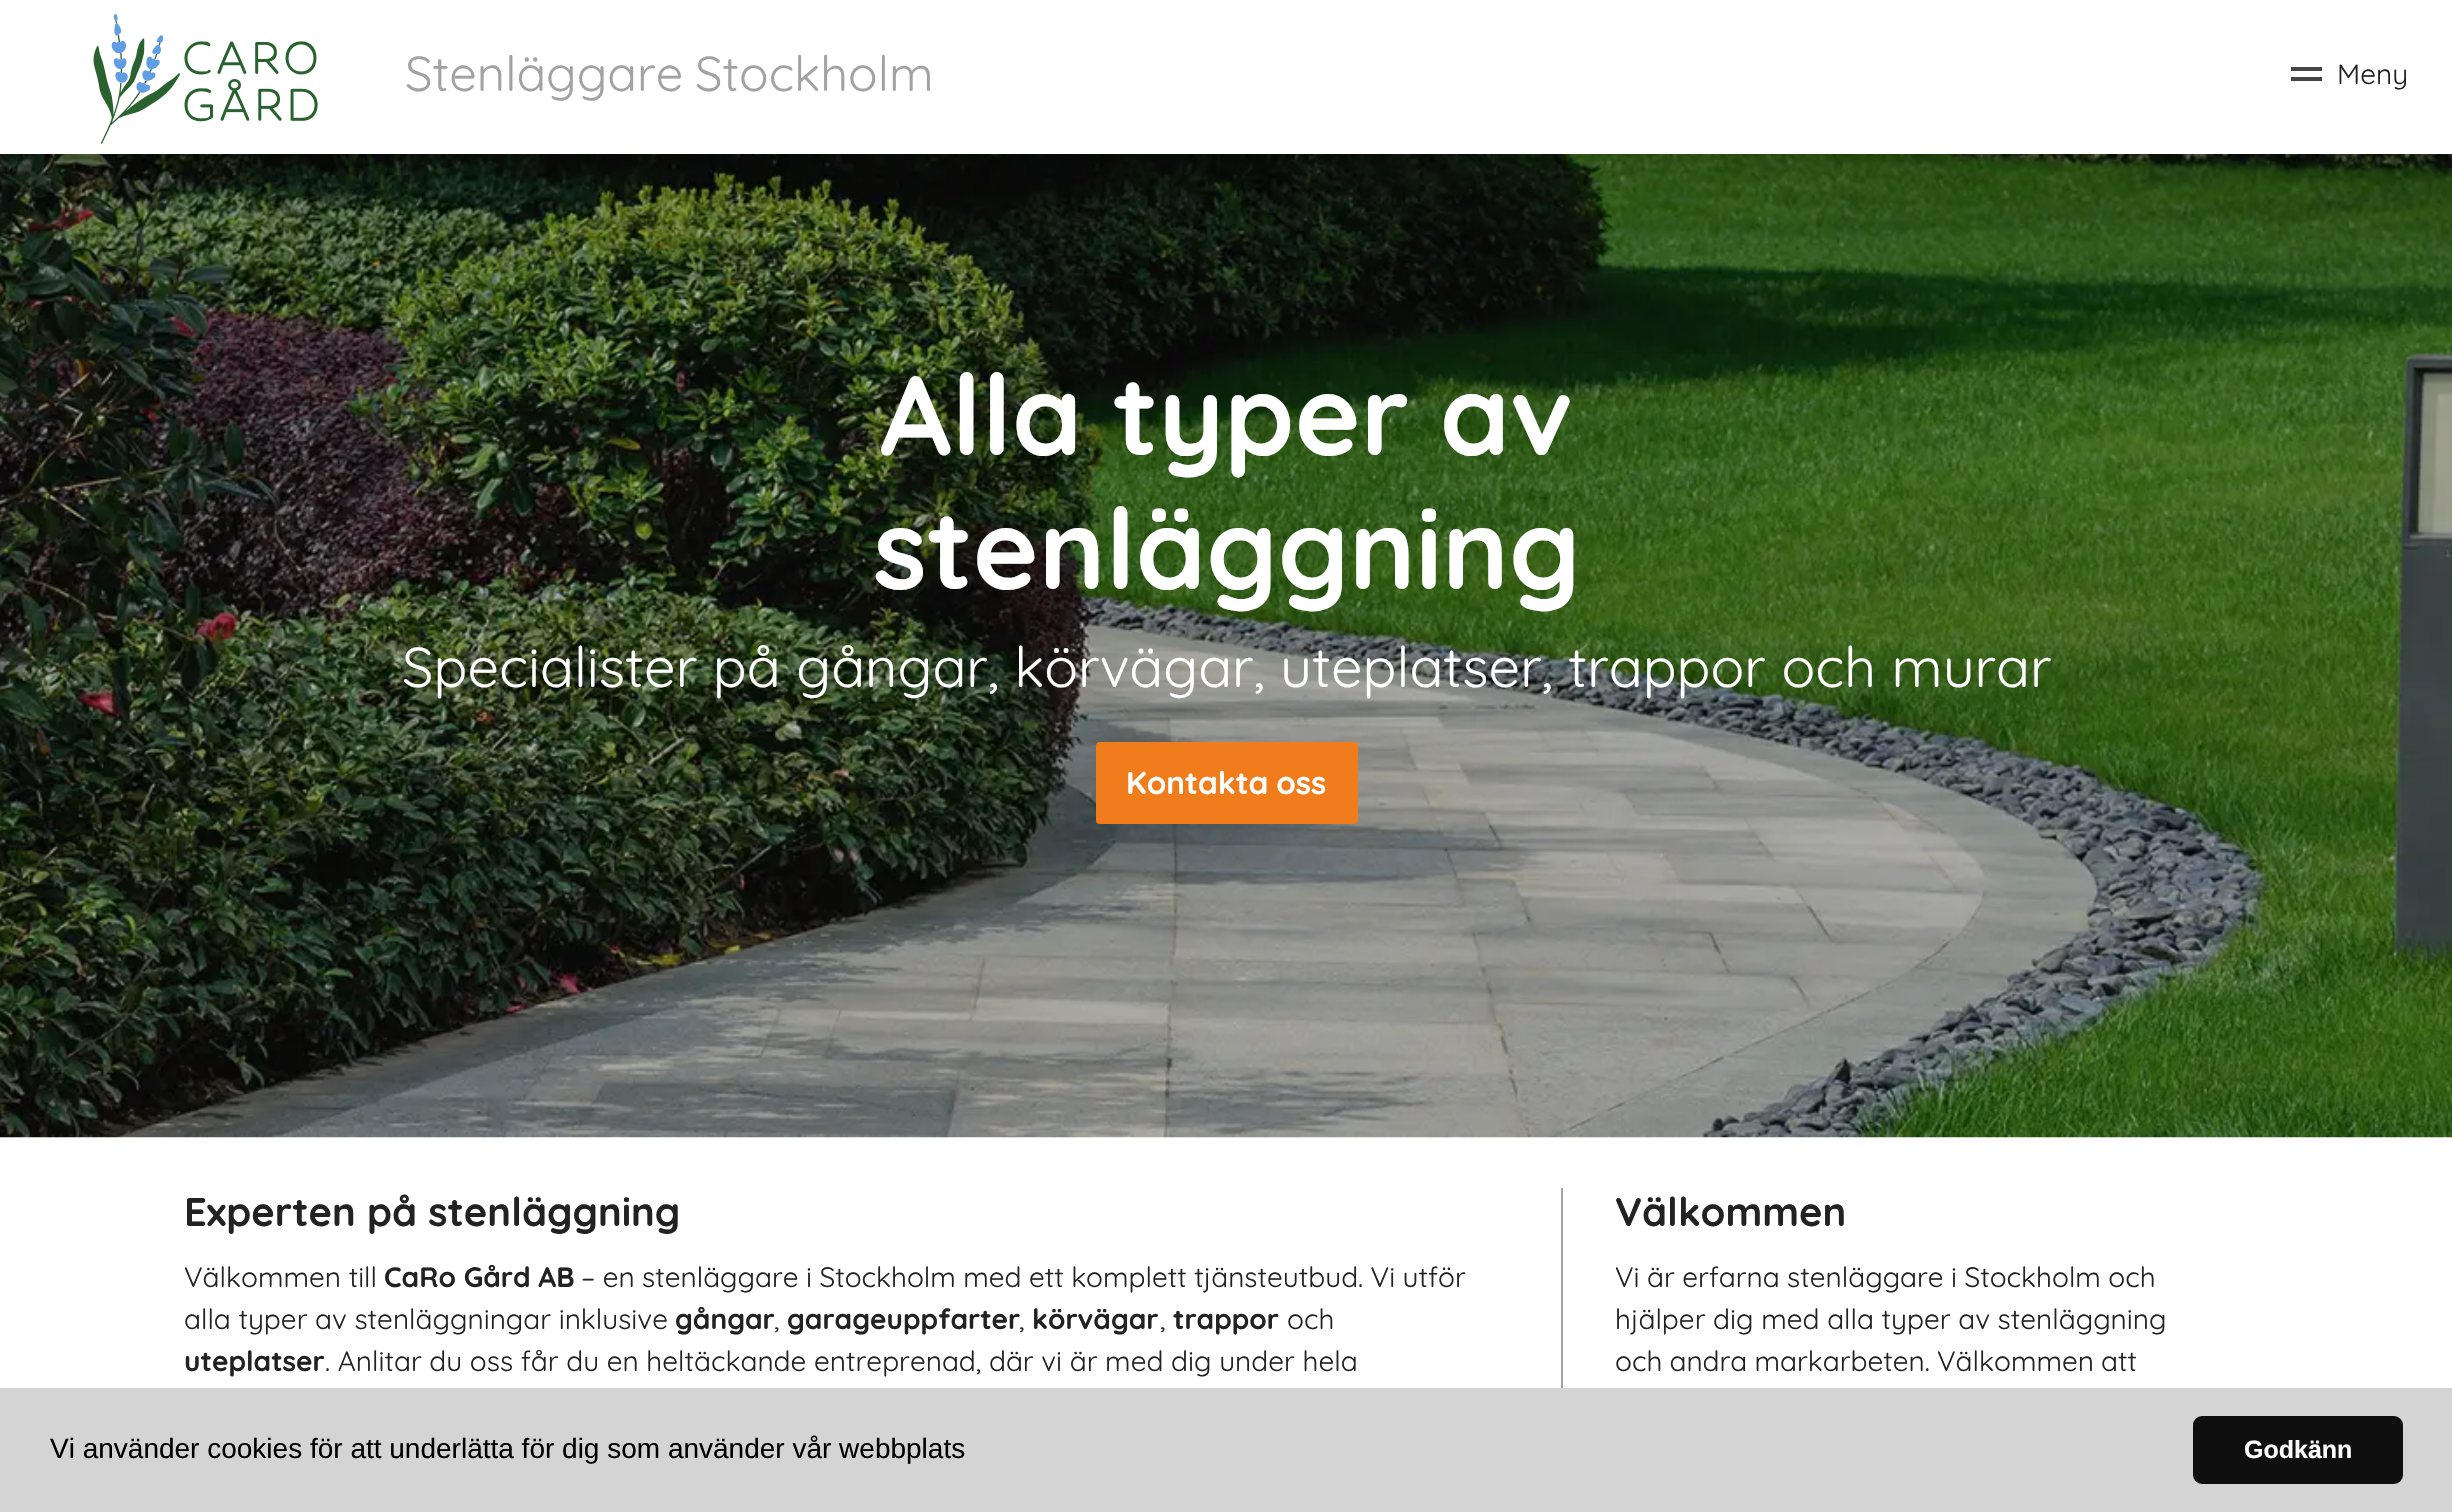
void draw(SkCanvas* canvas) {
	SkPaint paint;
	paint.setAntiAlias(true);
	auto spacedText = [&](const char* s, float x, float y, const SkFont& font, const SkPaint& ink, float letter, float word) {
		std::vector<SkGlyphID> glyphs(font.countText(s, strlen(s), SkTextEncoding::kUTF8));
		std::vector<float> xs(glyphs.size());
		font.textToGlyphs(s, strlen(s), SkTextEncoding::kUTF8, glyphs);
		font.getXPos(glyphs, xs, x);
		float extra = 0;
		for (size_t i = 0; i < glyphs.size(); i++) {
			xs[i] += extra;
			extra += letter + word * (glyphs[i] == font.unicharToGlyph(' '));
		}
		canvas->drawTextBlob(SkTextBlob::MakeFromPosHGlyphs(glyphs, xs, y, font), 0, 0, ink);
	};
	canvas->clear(0xffffffff);
	canvas->drawImageRect(SkImages::DeferredFromEncodedData(SkData::MakeFromFileName("img2.png")), SkRect::MakeXYWH(0, 154, 2452, 984), SkSamplingOptions());
	paint.setColor(0x1a000000);
	paint.setMaskFilter(SkMaskFilter::MakeBlur(kNormal_SkBlurStyle, 14));
	canvas->drawRect(SkRect::MakeXYWH(0, 4, 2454, 154), paint);
	paint.setMaskFilter(nullptr);
	paint.setColor(0xffffffff);
	canvas->drawRect(SkRect::MakeXYWH(0, 0, 2452, 154), paint);
	canvas->drawImageRect(SkImages::DeferredFromEncodedData(SkData::MakeFromFileName("img1.png")), SkRect::MakeXYWH(93, 14, 225, 130), SkSamplingOptions());
	SkFont f1(fontMgr->matchFamilyStyle("Quicksand", SkFontStyle::Normal()), 49);
	f1.setSubpixel(true);
	paint.setColor(0xffa2a2a2);
	spacedText("Stenläggare Stockholm", 405, 91, f1, paint, 0, -2);
	paint.setColor(0xff444444);
	canvas->drawRect(SkRect::MakeXYWH(2291, 67, 31, 4), paint);
	SkFont f2(fontMgr->matchFamilyStyle("Quicksand", SkFontStyle::Normal()), 28);
	f2.setSubpixel(true);
	paint.setColor(0xff222222);
	canvas->drawString("Meny", 2337, 84, f2, paint);
	paint.setColor(0xff444444);
	canvas->drawRect(SkRect::MakeXYWH(2291, 77, 31, 4), paint);
	SkFont f3(fontMgr->matchFamilyStyle("Quicksand", SkFontStyle::Bold()), 112);
	f3.setSubpixel(true);
	paint.setColor(0xffffffff);
	spacedText("Alla typer av", 880, 455, f3, paint, 0, -1);
	canvas->drawString("stenläggning", 873, 589, f3, paint);
	SkFont f4(fontMgr->matchFamilyStyle("Quicksand", SkFontStyle::Normal()), 56);
	f4.setSubpixel(true);
	spacedText("Specialister på gångar, körvägar, uteplatser, trappor och murar", 402, 687, f4, paint, 0, 0.25);
	paint.setColor(0xfff07c1b);
	canvas->drawRoundRect(SkRect::MakeXYWH(1096, 742, 262, 82), 4, 4, paint);
	SkFont f5(fontMgr->matchFamilyStyle("Quicksand", SkFontStyle::Bold()), 31.5);
	f5.setSubpixel(true);
	paint.setColor(0xffffffff);
	spacedText("Kontakta oss", 1126, 794, f5, paint, 0, -1);
	SkFont f6(fontMgr->matchFamilyStyle("Quicksand", SkFontStyle::Bold()), 39.9);
	f6.setSubpixel(true);
	paint.setColor(0xff222222);
	canvas->drawString("Experten på stenläggning", 184, 1226, f6, paint);
	canvas->drawString("Välkommen till", 184, 1287, f2, paint);
	SkFont f7(fontMgr->matchFamilyStyle("Quicksand", SkFontStyle::Bold()), 28);
	f7.setSubpixel(true);
	canvas->drawString("CaRo Gård AB", 384, 1287, f7, paint);
	spacedText("– en stenläggare i Stockholm med ett komplett tjänsteutbud. Vi utför", 581, 1287, f2, paint, 0, -0.25);
	canvas->drawString("alla typer av stenläggningar inklusive", 184, 1329, f2, paint);
	canvas->drawString("gångar", 675, 1329, f7, paint);
	canvas->drawString(",", 774, 1329, f2, paint);
	canvas->drawString("garageuppfarter", 787, 1329, f7, paint);
	canvas->drawString(",", 1019, 1329, f2, paint);
	canvas->drawString("körvägar", 1032, 1329, f7, paint);
	canvas->drawString(",", 1160, 1329, f2, paint);
	canvas->drawString("trappor", 1173, 1329, f7, paint);
	canvas->drawString("och", 1287, 1329, f2, paint);
	canvas->drawString("uteplatser", 184, 1371, f7, paint);
	canvas->drawString(". Anlitar du oss får du en heltäckande entreprenad, där vi är med dig under hela", 325, 1371, f2, paint);
	paint.setColor(0xffa2a3a2);
	canvas->drawRect(SkRect::MakeXYWH(1561, 1188, 2, 200), paint);
	paint.setColor(0xff222222);
	canvas->drawString("Välkommen", 1615, 1226, f6, paint);
	spacedText("Vi är erfarna stenläggare i Stockholm och", 1615, 1287, f2, paint, 0, -0.25);
	canvas->drawString("hjälper dig med alla typer av stenläggning", 1615, 1329, f2, paint);
	spacedText("och andra markarbeten. Välkommen att", 1615, 1371, f2, paint, 0, -0.5);
	paint.setColor(0xffd4d4d4);
	canvas->drawRect(SkRect::MakeXYWH(0, 1388, 2452, 124), paint);
	SkFont f8(fontMgr->matchFamilyStyle("Liberation Sans", SkFontStyle::Normal()), 28);
	f8.setSubpixel(true);
	paint.setColor(0xff000000);
	canvas->drawString("Vi använder cookies för att underlätta för dig som använder vår webbplats", 50, 1458, f8, paint);
	paint.setColor(0xff0f0f0f);
	canvas->drawRoundRect(SkRect::MakeXYWH(2193, 1416, 210, 68), 9, 9, paint);
	SkFont f9(fontMgr->matchFamilyStyle("Liberation Sans", SkFontStyle::Bold()), 25);
	f9.setSubpixel(true);
	paint.setColor(0xffffffff);
	canvas->drawString("Godkänn", 2244, 1458, f9, paint);
}
